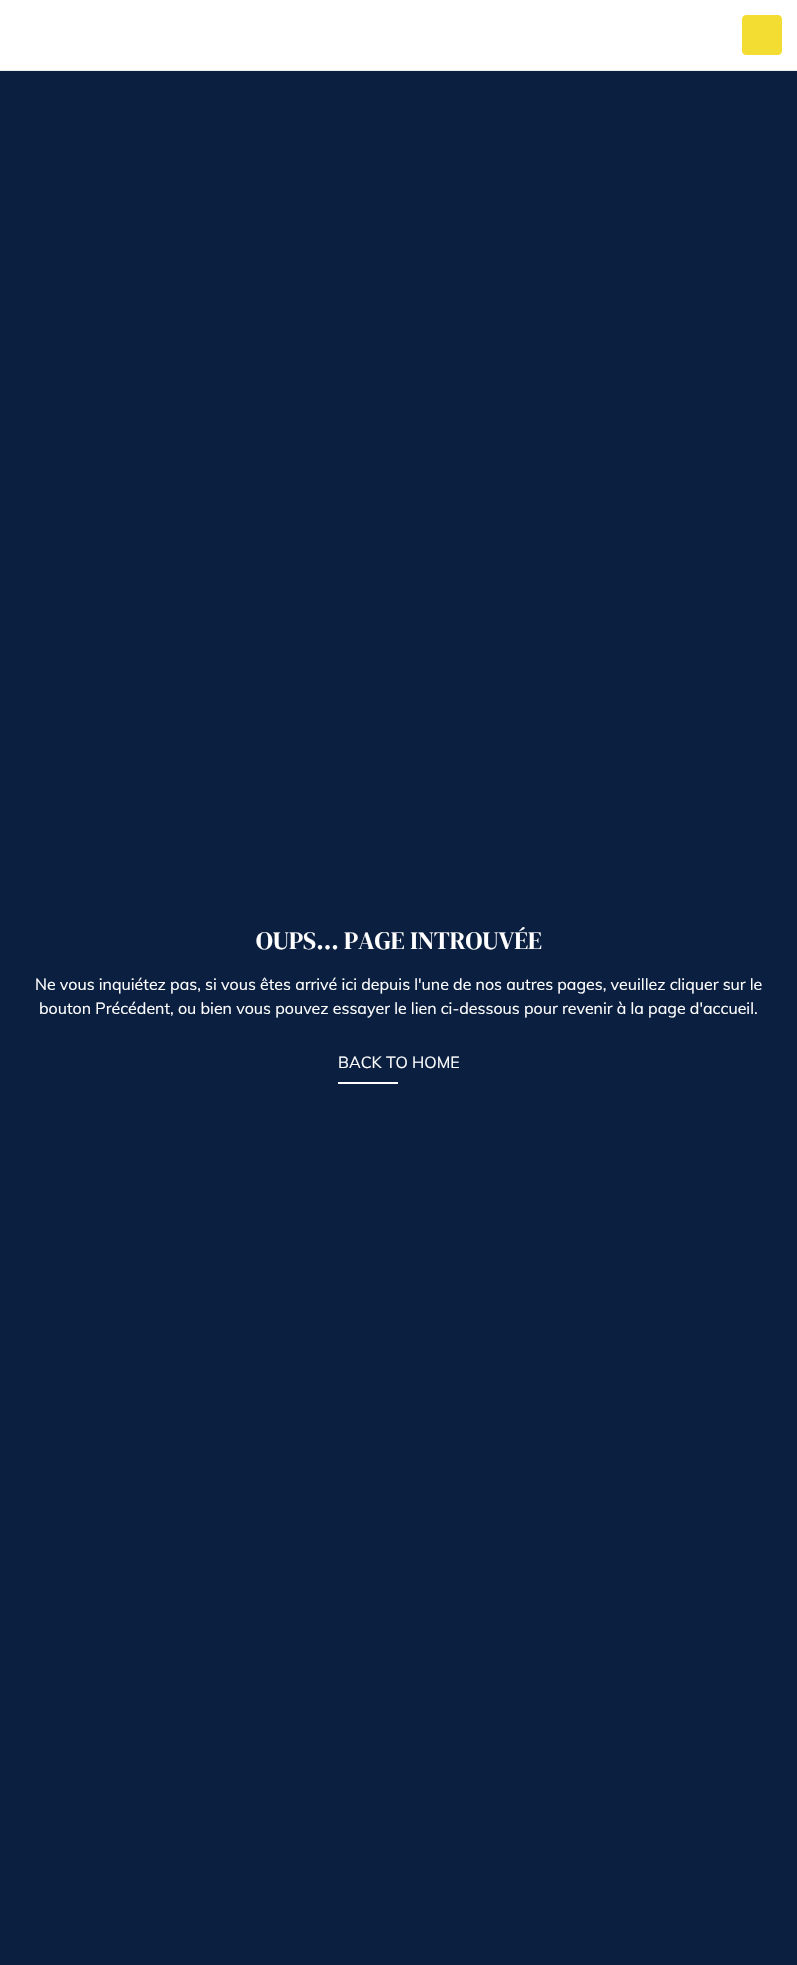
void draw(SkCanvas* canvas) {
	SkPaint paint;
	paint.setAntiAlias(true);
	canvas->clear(0xff0b1f40);
	paint.setColor(0xffffffff);
	canvas->drawRect(SkRect::MakeXYWH(0, 0, 797, 70), paint);
	paint.setColor(0xffebebeb);
	canvas->drawRect(SkRect::MakeXYWH(0, 70, 797, 1), paint);
	paint.setColor(0xfff4dd32);
	canvas->drawRoundRect(SkRect::MakeXYWH(742.5, 15.5, 39, 39), 3.5, 3.5, paint);
	paint.setStroke(true);
	paint.setStrokeWidth(1);
	canvas->drawRoundRect(SkRect::MakeXYWH(742.5, 15.5, 39, 39), 3.5, 3.5, paint);
	SkFont f1(fontMgr->matchFamilyStyle("DM Serif Display", SkFontStyle::Normal()), 25);
	f1.setSubpixel(true);
	paint.setStroke(false);
	paint.setColor(0xffffffff);
	canvas->drawString("OUPS... PAGE INTROUVÉE", 256, 949, f1, paint);
	SkFont f2(fontMgr->matchFamilyStyle("Muli", SkFontStyle::Normal()), 16);
	f2.setSubpixel(true);
	canvas->drawString("Ne vous inquiétez pas, si vous êtes arrivé ici depuis l'une de nos autres pages, veuillez cliquer sur le", 35, 990, f2, paint);
	canvas->drawString("bouton Précédent, ou bien vous pouvez essayer le lien ci-dessous pour revenir à la page d'accueil.", 39, 1014, f2, paint);
	canvas->drawString("BACK TO HOME", 338, 1068, f2, paint);
	canvas->drawRect(SkRect::MakeXYWH(338, 1082, 60, 2), paint);
}
